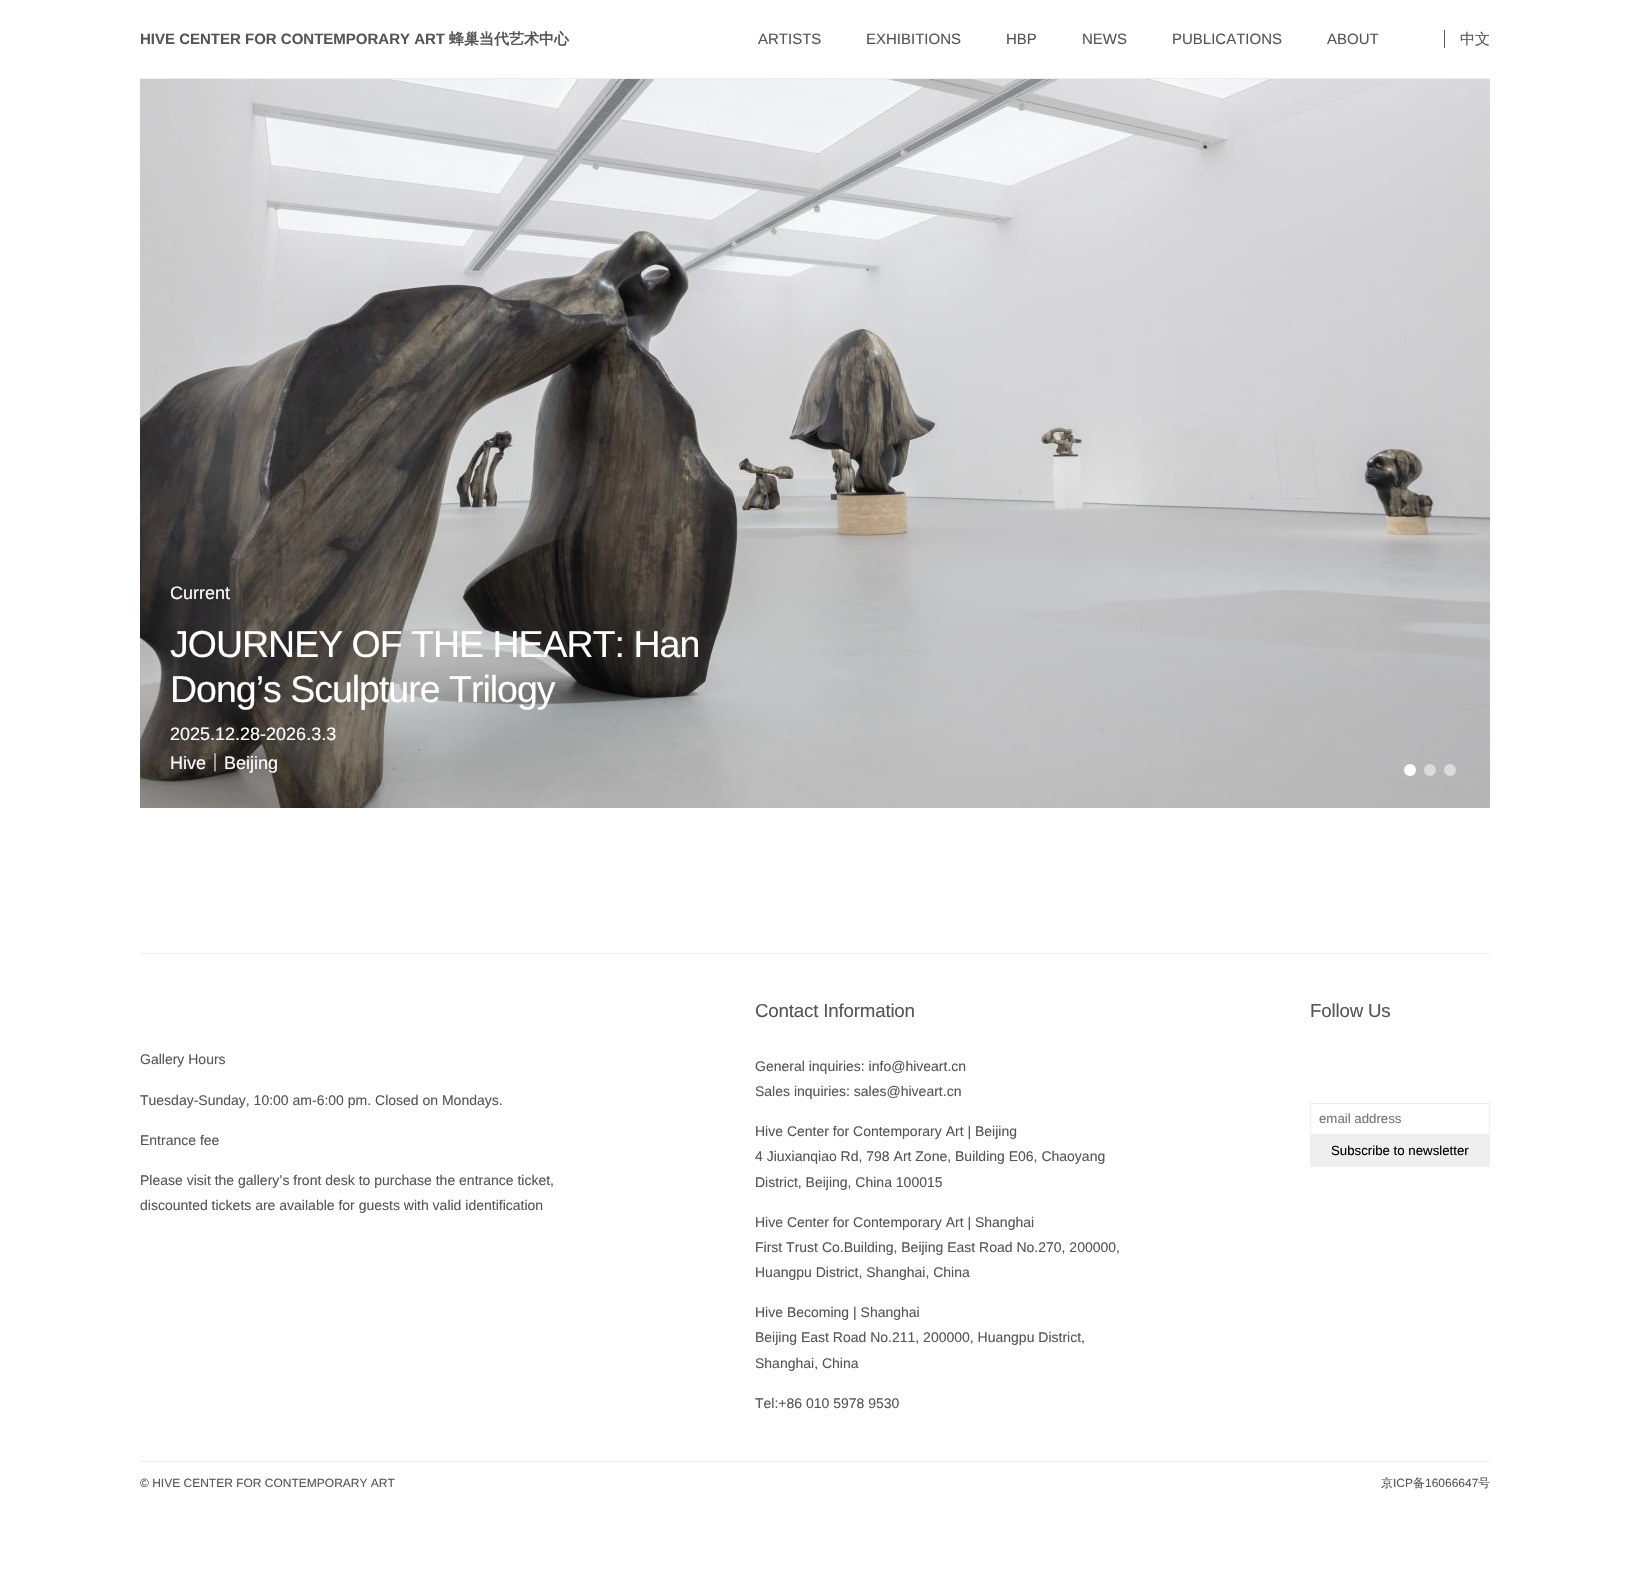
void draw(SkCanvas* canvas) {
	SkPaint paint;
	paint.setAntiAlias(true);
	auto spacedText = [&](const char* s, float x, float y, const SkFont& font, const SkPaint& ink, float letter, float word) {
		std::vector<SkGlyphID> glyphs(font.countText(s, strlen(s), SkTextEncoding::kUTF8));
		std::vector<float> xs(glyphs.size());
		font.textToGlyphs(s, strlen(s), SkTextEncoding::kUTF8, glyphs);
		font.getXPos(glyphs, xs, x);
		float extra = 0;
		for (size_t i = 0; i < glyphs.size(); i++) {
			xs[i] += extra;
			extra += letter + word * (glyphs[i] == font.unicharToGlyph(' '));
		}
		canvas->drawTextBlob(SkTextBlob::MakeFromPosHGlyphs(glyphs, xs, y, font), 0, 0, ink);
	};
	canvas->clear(0xffffffff);
	paint.setColor(0xffeeeeee);
	canvas->drawRect(SkRect::MakeXYWH(140, 78, 1350, 1), paint);
	SkFont f1(fontMgr->matchFamilyStyle("Liberation Sans", SkFontStyle::Bold()), 15);
	f1.setSubpixel(true);
	paint.setColor(0xff555555);
	canvas->drawString("HIVE CENTER FOR CONTEMPORARY ART", 140, 44, f1, paint);
	SkFont f2(fontMgr->matchFamilyStyle("WenQuanYi Zen Hei", SkFontStyle::Bold()), 15);
	f2.setSubpixel(true);
	canvas->drawString("蜂巢当代艺术中心", 449, 44, f2, paint);
	SkFont f3(fontMgr->matchFamilyStyle("Liberation Sans", SkFontStyle::Normal()), 15);
	f3.setSubpixel(true);
	canvas->drawString("ARTISTS", 758, 44, f3, paint);
	canvas->drawString("EXHIBITIONS", 866, 44, f3, paint);
	canvas->drawString("HBP", 1006, 44, f3, paint);
	canvas->drawString("NEWS", 1082, 44, f3, paint);
	canvas->drawString("PUBLICATIONS", 1172, 44, f3, paint);
	canvas->drawString("ABOUT", 1327, 44, f3, paint);
	canvas->drawRect(SkRect::MakeXYWH(1444, 30, 1, 18), paint);
	SkFont f4(fontMgr->matchFamilyStyle("WenQuanYi Zen Hei", SkFontStyle(500, SkFontStyle::kNormal_Width, SkFontStyle::kUpright_Slant)), 15);
	f4.setSubpixel(true);
	canvas->drawString("中文", 1460, 44, f4, paint);
	canvas->drawImageRect(SkImages::DeferredFromEncodedData(SkData::MakeFromFileName("img1.png")), SkRect::MakeXYWH(140, 79, 1350, 729), SkSamplingOptions());
	SkFont f5(fontMgr->matchFamilyStyle("Liberation Sans", SkFontStyle::Normal()), 18);
	f5.setSubpixel(true);
	paint.setColor(0xffffffff);
	canvas->drawString("Current", 170, 599, f5, paint);
	SkFont f6(fontMgr->matchFamilyStyle("Liberation Sans", SkFontStyle::Normal()), 37.5);
	f6.setSubpixel(true);
	spacedText("JOURNEY OF THE HEART: Han", 170, 657, f6, paint, -1, 0);
	spacedText("Dong’s Sculpture Trilogy", 170, 702, f6, paint, -1, 0);
	canvas->drawString("2025.12.28-2026.3.3", 170, 740, f5, paint);
	canvas->drawString("Hive", 170, 769, f5, paint);
	SkFont f7(fontMgr->matchFamilyStyle("Noto Sans SC", SkFontStyle::Normal()), 18);
	f7.setSubpixel(true);
	canvas->drawString("｜", 206, 769, f7, paint);
	canvas->drawString("Beijing", 224, 769, f5, paint);
	canvas->drawCircle(1410, 770, 6, paint);
	paint.setColor(0x80ffffff);
	canvas->drawCircle(1430, 770, 6, paint);
	canvas->drawCircle(1450, 770, 6, paint);
	paint.setColor(0xffeeeeee);
	canvas->drawRect(SkRect::MakeXYWH(140, 953, 1350, 1), paint);
	SkFont f8(fontMgr->matchFamilyStyle("Liberation Sans", SkFontStyle::Normal()), 14);
	f8.setSubpixel(true);
	paint.setColor(0xff555555);
	canvas->drawString("Gallery Hours", 140, 1064, f8, paint);
	canvas->drawString("Tuesday-Sunday, 10:00 am-6:00 pm. Closed on Mondays.", 140, 1105, f8, paint);
	canvas->drawString("Entrance fee", 140, 1145, f8, paint);
	canvas->drawString("Please visit the gallery’s front desk to purchase the entrance ticket,", 140, 1185, f8, paint);
	canvas->drawString("discounted tickets are available for guests with valid identification", 140, 1210, f8, paint);
	SkFont f9(fontMgr->matchFamilyStyle("Liberation Sans", SkFontStyle::Normal()), 18.75);
	f9.setSubpixel(true);
	spacedText("Contact Information", 755, 1017, f9, paint, -0.2, 0);
	canvas->drawString("General inquiries: info@hiveart.cn", 755, 1071, f8, paint);
	canvas->drawString("Sales inquiries: sales@hiveart.cn", 755, 1096, f8, paint);
	canvas->drawString("Hive Center for Contemporary Art | Beijing", 755, 1136, f8, paint);
	canvas->drawString("4 Jiuxianqiao Rd, 798 Art Zone, Building E06, Chaoyang", 755, 1161, f8, paint);
	canvas->drawString("District, Beijing, China 100015", 755, 1187, f8, paint);
	canvas->drawString("Hive Center for Contemporary Art | Shanghai", 755, 1227, f8, paint);
	canvas->drawString("First Trust Co.Building, Beijing East Road No.270, 200000,", 755, 1252, f8, paint);
	canvas->drawString("Huangpu District, Shanghai, China", 755, 1277, f8, paint);
	canvas->drawString("Hive Becoming | Shanghai", 755, 1317, f8, paint);
	canvas->drawString("Beijing East Road No.211, 200000, Huangpu District,", 755, 1342, f8, paint);
	canvas->drawString("Shanghai, China", 755, 1368, f8, paint);
	canvas->drawString("Tel:+86 010 5978 9530", 755, 1408, f8, paint);
	spacedText("Follow Us", 1310, 1017, f9, paint, -0.2, 0);
	paint.setStroke(true);
	paint.setStrokeWidth(1);
	paint.setColor(0xffeeeeee);
	canvas->drawRect(SkRect::MakeXYWH(1310.5, 1103.5, 179, 31), paint);
	SkFont f10(fontMgr->matchFamilyStyle("Liberation Sans", SkFontStyle::Normal()), 13.25);
	f10.setSubpixel(true);
	paint.setStroke(false);
	paint.setColor(0xff757575);
	canvas->drawString("email address", 1319, 1123, f10, paint);
	paint.setColor(0xffeeeeee);
	canvas->drawRect(SkRect::MakeXYWH(1310, 1135, 180, 32), paint);
	paint.setColor(0xff000000);
	canvas->drawString("Subscribe to newsletter", 1331, 1155, f10, paint);
	paint.setColor(0xffeeeeee);
	canvas->drawRect(SkRect::MakeXYWH(140, 1461, 1350, 1), paint);
	SkFont f11(fontMgr->matchFamilyStyle("Liberation Sans", SkFontStyle::Normal()), 12);
	f11.setSubpixel(true);
	paint.setColor(0xff555555);
	canvas->drawString("© HIVE CENTER FOR CONTEMPORARY ART", 140, 1487, f11, paint);
	SkFont f12(fontMgr->matchFamilyStyle("WenQuanYi Zen Hei", SkFontStyle(500, SkFontStyle::kNormal_Width, SkFontStyle::kUpright_Slant)), 12);
	f12.setSubpixel(true);
	canvas->drawString("京", 1381, 1487, f12, paint);
	canvas->drawString("ICP", 1393, 1487, f11, paint);
	canvas->drawString("备", 1413, 1487, f12, paint);
	canvas->drawString("16066647", 1425, 1487, f11, paint);
	canvas->drawString("号", 1478, 1487, f12, paint);
}
